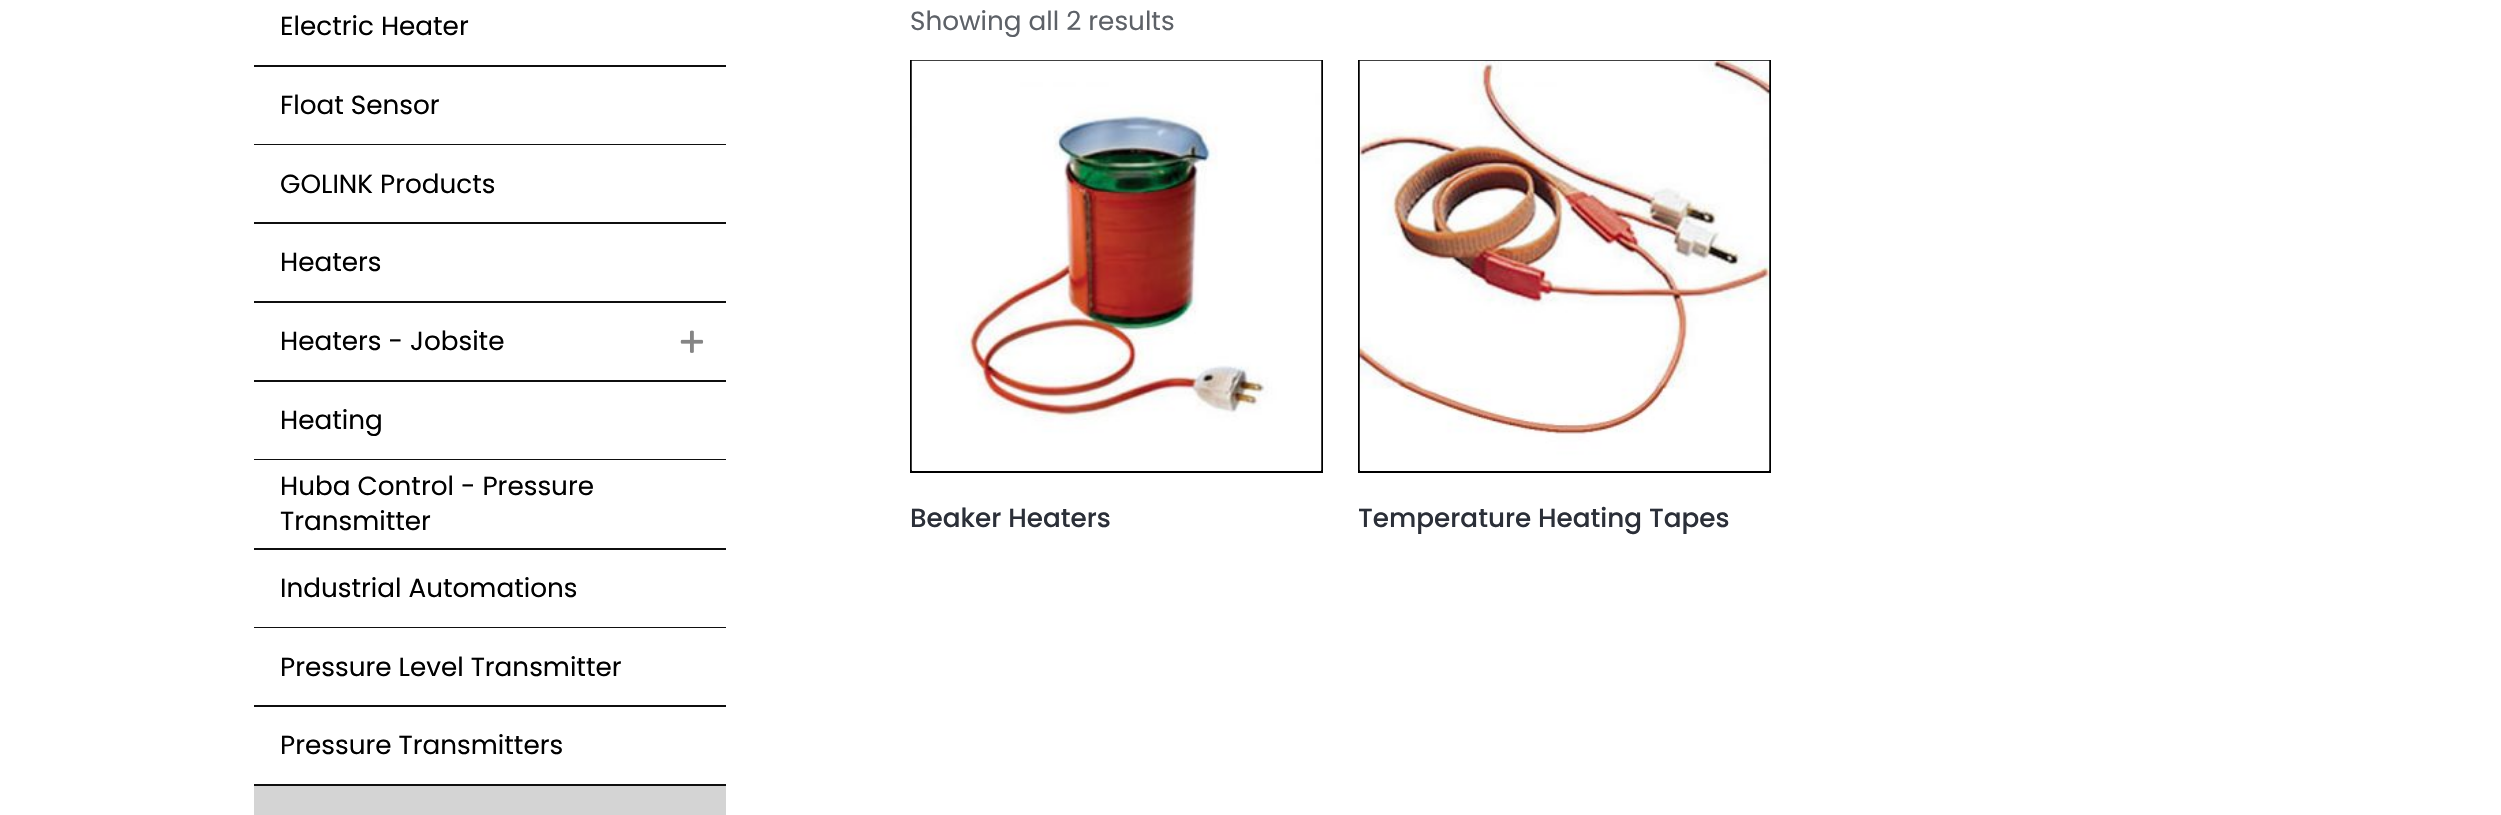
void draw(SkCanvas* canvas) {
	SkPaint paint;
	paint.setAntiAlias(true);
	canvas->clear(0xffffffff);
	paint.setColor(0xff0f0f0f);
	canvas->drawRect(SkRect::MakeXYWH(254, 65, 472, 721), paint);
	SkFont f1(fontMgr->matchFamilyStyle("Poppins", SkFontStyle::Normal()), 26.25);
	f1.setSubpixel(true);
	paint.setColor(0xff000000);
	canvas->drawString("Electric Heater", 280, 35, f1, paint);
	paint.setColor(0xffffffff);
	canvas->drawRect(SkRect::MakeXYWH(254, 67, 472, 77), paint);
	paint.setColor(0xff000000);
	canvas->drawString("Float Sensor", 280, 114, f1, paint);
	paint.setColor(0xffffffff);
	canvas->drawRect(SkRect::MakeXYWH(254, 145, 472, 77), paint);
	paint.setColor(0xff000000);
	canvas->drawString("GOLINK Products", 280, 193, f1, paint);
	paint.setColor(0xffffffff);
	canvas->drawRect(SkRect::MakeXYWH(254, 224, 472, 77), paint);
	paint.setColor(0xff000000);
	canvas->drawString("Heaters", 280, 271, f1, paint);
	paint.setColor(0xffffffff);
	canvas->drawRect(SkRect::MakeXYWH(254, 303, 472, 77), paint);
	paint.setColor(0xff000000);
	canvas->drawString("Heaters - Jobsite", 280, 350, f1, paint);
	canvas->drawImageRect(SkImages::DeferredFromEncodedData(SkData::MakeFromFileName("img1.png")), SkRect::MakeXYWH(680, 330, 24, 23), SkSamplingOptions());
	paint.setColor(0xffffffff);
	canvas->drawRect(SkRect::MakeXYWH(254, 382, 472, 77), paint);
	paint.setColor(0xff000000);
	canvas->drawString("Heating", 280, 429, f1, paint);
	paint.setColor(0xffffffff);
	canvas->drawRect(SkRect::MakeXYWH(254, 460, 472, 88), paint);
	paint.setColor(0xff000000);
	canvas->drawString("Huba Control - Pressure", 280, 495, f1, paint);
	canvas->drawString("Transmitter", 280, 530, f1, paint);
	paint.setColor(0xffffffff);
	canvas->drawRect(SkRect::MakeXYWH(254, 550, 472, 77), paint);
	paint.setColor(0xff000000);
	canvas->drawString("Industrial Automations", 280, 597, f1, paint);
	paint.setColor(0xffffffff);
	canvas->drawRect(SkRect::MakeXYWH(254, 628, 472, 77), paint);
	paint.setColor(0xff000000);
	canvas->drawString("Pressure Level Transmitter", 280, 676, f1, paint);
	paint.setColor(0xffffffff);
	canvas->drawRect(SkRect::MakeXYWH(254, 707, 472, 77), paint);
	paint.setColor(0xff000000);
	canvas->drawString("Pressure Transmitters", 280, 754, f1, paint);
	paint.setColor(0xffd4d4d4);
	canvas->drawRect(SkRect::MakeXYWH(254, 786, 472, 29), paint);
	paint.setColor(0xff5d6167);
	canvas->drawString("Showing all 2 results", 910, 30, f1, paint);
	paint.setStroke(true);
	paint.setStrokeWidth(2);
	paint.setColor(0xff000000);
	canvas->drawRect(SkRect::MakeXYWH(911, 61, 411, 411), paint);
	canvas->drawImageRect(SkImages::DeferredFromEncodedData(SkData::MakeFromFileName("img2.png")), SkRect::MakeXYWH(911, 60, 411, 411), SkSamplingOptions());
	SkFont f2(fontMgr->matchFamilyStyle("Poppins", SkFontStyle(500, SkFontStyle::kNormal_Width, SkFontStyle::kUpright_Slant)), 26.25);
	f2.setSubpixel(true);
	paint.setStroke(false);
	paint.setColor(0xff2b2f38);
	canvas->drawString("Beaker Heaters", 910, 527, f2, paint);
	paint.setStroke(true);
	paint.setColor(0xff000000);
	canvas->drawRect(SkRect::MakeXYWH(1359, 61, 411, 411), paint);
	canvas->drawImageRect(SkImages::DeferredFromEncodedData(SkData::MakeFromFileName("img3.png")), SkRect::MakeXYWH(1359, 60, 411, 411), SkSamplingOptions());
	paint.setStroke(false);
	paint.setColor(0xff2b2f38);
	canvas->drawString("Temperature Heating Tapes", 1358, 527, f2, paint);
}
